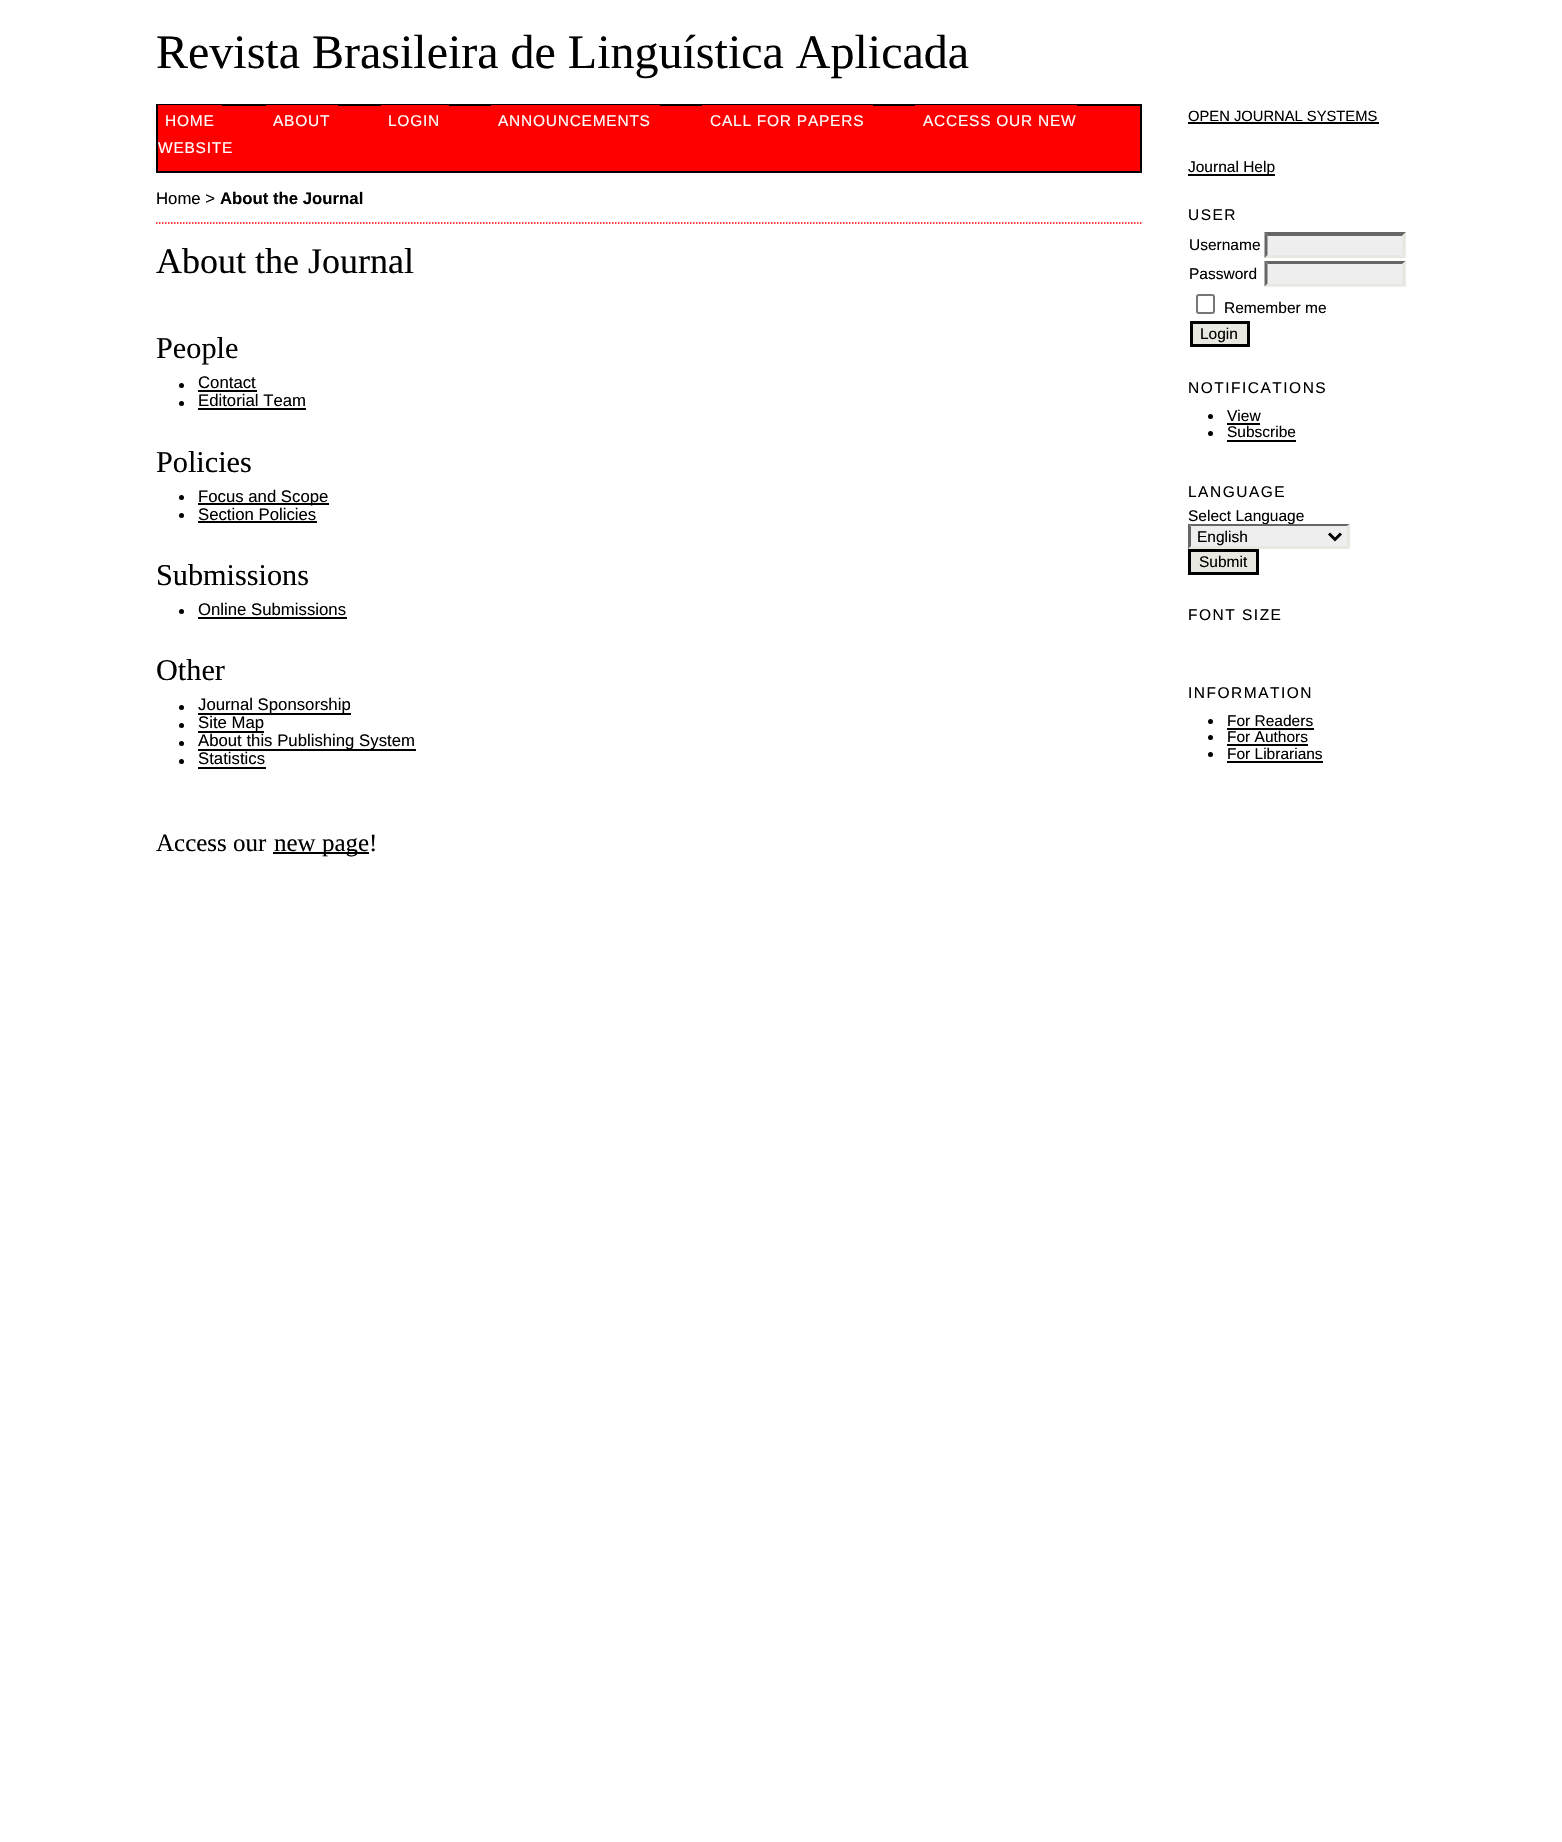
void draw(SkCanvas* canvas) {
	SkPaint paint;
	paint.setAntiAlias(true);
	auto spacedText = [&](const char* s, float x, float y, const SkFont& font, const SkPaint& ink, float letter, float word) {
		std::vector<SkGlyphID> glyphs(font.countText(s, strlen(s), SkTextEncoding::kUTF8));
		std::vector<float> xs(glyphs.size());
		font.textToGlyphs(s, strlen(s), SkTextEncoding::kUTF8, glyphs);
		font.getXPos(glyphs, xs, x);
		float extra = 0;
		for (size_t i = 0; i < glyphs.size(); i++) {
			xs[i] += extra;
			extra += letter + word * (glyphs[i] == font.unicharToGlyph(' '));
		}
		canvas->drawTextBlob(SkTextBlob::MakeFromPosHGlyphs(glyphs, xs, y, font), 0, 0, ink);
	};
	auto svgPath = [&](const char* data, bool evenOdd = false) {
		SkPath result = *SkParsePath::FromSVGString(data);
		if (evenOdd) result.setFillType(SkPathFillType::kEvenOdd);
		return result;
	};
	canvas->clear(0xffffffff);
	SkFont f1(fontMgr->matchFamilyStyle("Liberation Serif", SkFontStyle::Normal()), 48);
	f1.setSubpixel(true);
	paint.setColor(0xff000000);
	canvas->drawString("Revista Brasileira de Linguística Aplicada", 156, 68, f1, paint);
	paint.setColor(0xffff0000);
	canvas->drawRect(SkRect::MakeXYWH(157, 105, 984, 67), paint);
	paint.setStroke(true);
	paint.setStrokeWidth(2);
	paint.setColor(0xff000000);
	canvas->drawRect(SkRect::MakeXYWH(157, 105, 984, 67), paint);
	SkFont f2(fontMgr->matchFamilyStyle("Liberation Sans", SkFontStyle::Normal()), 15.5);
	f2.setSubpixel(true);
	paint.setStroke(false);
	paint.setColor(0xffffffff);
	spacedText("HOME", 165, 126, f2, paint, 0.75, 0);
	paint.setColor(0xffff0000);
	canvas->drawRect(SkRect::MakeXYWH(158, 105, 64, 1), paint);
	paint.setColor(0xffffffff);
	spacedText("ABOUT", 273, 126, f2, paint, 0.75, 0);
	paint.setColor(0xffff0000);
	canvas->drawRect(SkRect::MakeXYWH(266, 105, 72, 1), paint);
	paint.setColor(0xffffffff);
	spacedText("LOGIN", 388, 126, f2, paint, 0.75, 0);
	paint.setColor(0xffff0000);
	canvas->drawRect(SkRect::MakeXYWH(381, 105, 68, 1), paint);
	paint.setColor(0xffffffff);
	spacedText("ANNOUNCEMENTS", 498, 126, f2, paint, 0.75, 0);
	paint.setColor(0xffff0000);
	canvas->drawRect(SkRect::MakeXYWH(491, 105, 169, 1), paint);
	paint.setColor(0xffffffff);
	spacedText("CALL FOR PAPERS", 710, 126, f2, paint, 0.75, 0);
	paint.setColor(0xffff0000);
	canvas->drawRect(SkRect::MakeXYWH(702, 105, 171, 1), paint);
	paint.setColor(0xffffffff);
	spacedText("ACCESS OUR NEW", 923, 126, f2, paint, 0.75, 0);
	paint.setColor(0xffff0000);
	canvas->drawRect(SkRect::MakeXYWH(915, 105, 162, 1), paint);
	paint.setColor(0xffffffff);
	spacedText("WEBSITE", 158, 153, f2, paint, 0.75, 0);
	paint.setStroke(true);
	paint.setStrokeWidth(1.5);
	paint.setColor(0xffff0000);
	paint.setPathEffect(SkDashPathEffect::Make({{1.5f, 1.5f}}, 0));
	canvas->drawPath(svgPath("M156 223H1141.5"), paint);
	paint.setPathEffect(nullptr);
	SkFont f3(fontMgr->matchFamilyStyle("Liberation Sans", SkFontStyle::Normal()), 16.75);
	f3.setSubpixel(true);
	paint.setStroke(false);
	paint.setColor(0xff000000);
	canvas->drawString("Home >", 156, 204, f3, paint);
	SkFont f4(fontMgr->matchFamilyStyle("Liberation Sans", SkFontStyle::Bold()), 16.75);
	f4.setSubpixel(true);
	canvas->drawString("About the Journal", 220, 204, f4, paint);
	SkFont f5(fontMgr->matchFamilyStyle("Liberation Serif", SkFontStyle::Normal()), 36);
	f5.setSubpixel(true);
	canvas->drawString("About the Journal", 156, 273, f5, paint);
	SkFont f6(fontMgr->matchFamilyStyle("Liberation Serif", SkFontStyle::Normal()), 30.25);
	f6.setSubpixel(true);
	canvas->drawString("People", 156, 358, f6, paint);
	canvas->drawCircle(181.5, 385.5, 2.5, paint);
	canvas->drawString("Contact", 198, 388, f3, paint);
	canvas->drawRect(SkRect::MakeXYWH(198, 390, 59, 2), paint);
	canvas->drawCircle(181.5, 403.5, 2.5, paint);
	canvas->drawString("Editorial Team", 198, 406, f3, paint);
	canvas->drawRect(SkRect::MakeXYWH(198, 408, 108, 2), paint);
	canvas->drawString("Policies", 156, 472, f6, paint);
	canvas->drawCircle(181.5, 497.5, 2.5, paint);
	canvas->drawRect(SkRect::MakeXYWH(198, 503, 131, 2), paint);
	canvas->drawString("Focus and Scope", 198, 502, f3, paint);
	canvas->drawCircle(181.5, 515.5, 2.5, paint);
	canvas->drawString("Section Policies", 198, 520, f3, paint);
	canvas->drawRect(SkRect::MakeXYWH(198, 521, 119, 2), paint);
	canvas->drawString("Submissions", 156, 585, f6, paint);
	canvas->drawCircle(181.5, 611.5, 2.5, paint);
	canvas->drawString("Online Submissions", 198, 615, f3, paint);
	canvas->drawRect(SkRect::MakeXYWH(198, 617, 149, 2), paint);
	canvas->drawString("Other", 156, 680, f6, paint);
	canvas->drawCircle(181.5, 707.5, 2.5, paint);
	canvas->drawRect(SkRect::MakeXYWH(198, 713, 153, 2), paint);
	canvas->drawString("Journal Sponsorship", 198, 710, f3, paint);
	canvas->drawCircle(181.5, 725.5, 2.5, paint);
	canvas->drawRect(SkRect::MakeXYWH(198, 731, 66, 2), paint);
	canvas->drawString("Site Map", 198, 728, f3, paint);
	canvas->drawCircle(181.5, 743.5, 2.5, paint);
	canvas->drawRect(SkRect::MakeXYWH(198, 749, 218, 2), paint);
	canvas->drawString("About this Publishing System", 198, 746, f3, paint);
	canvas->drawCircle(181.5, 761.5, 2.5, paint);
	canvas->drawString("Statistics", 198, 764, f3, paint);
	canvas->drawRect(SkRect::MakeXYWH(198, 767, 68, 2), paint);
	SkFont f7(fontMgr->matchFamilyStyle("Liberation Serif", SkFontStyle::Normal()), 25);
	f7.setSubpixel(true);
	canvas->drawString("Access our", 156, 851, f7, paint);
	canvas->drawRect(SkRect::MakeXYWH(273, 852, 96, 2), paint);
	canvas->drawString("new page!", 274, 851, f7, paint);
	SkFont f8(fontMgr->matchFamilyStyle("Liberation Sans", SkFontStyle::Normal()), 14.75);
	f8.setSubpixel(true);
	canvas->drawString("OPEN JOURNAL SYSTEMS", 1188, 121, f8, paint);
	canvas->drawRect(SkRect::MakeXYWH(1188, 122, 191, 2), paint);
	canvas->drawRect(SkRect::MakeXYWH(1188, 174, 87, 2), paint);
	canvas->drawString("Journal Help", 1188, 172, f2, paint);
	spacedText("USER", 1188, 220, f2, paint, 1.5, 0);
	canvas->drawString("Username", 1189, 250, f2, paint);
	paint.setColor(0xffeeeeee);
	canvas->drawRect(SkRect::MakeXYWH(1265, 233, 141, 25), paint);
	paint.setColor(0xff666666);
	canvas->drawPath(svgPath("M1264 232H1406L1402 236H1268Z"), paint);
	paint.setColor(0xffe8e8e1);
	canvas->drawPath(svgPath("M1405.5 232.5V258L1402.5 255V235.5Z"), paint);
	canvas->drawPath(svgPath("M1406 258H1264L1268 255H1402Z"), paint);
	paint.setColor(0xff666666);
	canvas->drawPath(svgPath("M1264.5 258V232.5L1267.5 235.5V255Z"), paint);
	paint.setColor(0xff000000);
	canvas->drawString("Password", 1189, 279, f2, paint);
	paint.setColor(0xffeeeeee);
	canvas->drawRect(SkRect::MakeXYWH(1265, 261, 141, 26), paint);
	paint.setColor(0xff666666);
	canvas->drawPath(svgPath("M1264 261H1406L1402 264H1268Z"), paint);
	paint.setColor(0xffe8e8e1);
	canvas->drawPath(svgPath("M1405.5 261V286.5L1402.5 283.5V264Z"), paint);
	canvas->drawPath(svgPath("M1406 286H1264L1268 284H1402Z"), paint);
	paint.setColor(0xff666666);
	canvas->drawPath(svgPath("M1264.5 286.5V261L1267.5 264V283.5Z"), paint);
	paint.setStroke(true);
	paint.setStrokeWidth(2);
	paint.setColor(0xff767676);
	canvas->drawRoundRect(SkRect::MakeXYWH(1197, 295, 17, 18), 2, 2, paint);
	paint.setStroke(false);
	paint.setColor(0xff000000);
	canvas->drawString("Remember me", 1224, 313, f2, paint);
	paint.setColor(0xffe8e8e1);
	canvas->drawRect(SkRect::MakeXYWH(1191.5, 322.5, 57, 23), paint);
	paint.setStroke(true);
	paint.setStrokeWidth(3);
	paint.setColor(0xff000000);
	canvas->drawRect(SkRect::MakeXYWH(1191.5, 322.5, 57, 23), paint);
	paint.setStroke(false);
	canvas->drawString("Login", 1200, 339, f2, paint);
	spacedText("NOTIFICATIONS", 1188, 393, f2, paint, 1.5, 0);
	canvas->drawCircle(1210.5, 416.5, 2.5, paint);
	canvas->drawString("View", 1227, 421, f2, paint);
	canvas->drawRect(SkRect::MakeXYWH(1227, 423, 33, 2), paint);
	canvas->drawCircle(1210.5, 433.5, 2.5, paint);
	canvas->drawString("Subscribe", 1227, 437, f2, paint);
	canvas->drawRect(SkRect::MakeXYWH(1227, 440, 69, 2), paint);
	spacedText("LANGUAGE", 1188, 497, f2, paint, 1.5, 0);
	canvas->drawString("Select Language", 1188, 521, f2, paint);
	paint.setColor(0xffeeeeee);
	canvas->drawRect(SkRect::MakeXYWH(1188, 524, 162, 25), paint);
	paint.setColor(0xff666666);
	canvas->drawPath(svgPath("M1188 524H1350L1347 526H1191Z"), paint);
	paint.setColor(0xffe8e8e1);
	canvas->drawPath(svgPath("M1350 523.5V549L1347 546V526.5Z"), paint);
	canvas->drawPath(svgPath("M1350 549H1188L1191 546H1347Z"), paint);
	paint.setColor(0xff666666);
	canvas->drawPath(svgPath("M1188 549V523.5L1191 526.5V546Z"), paint);
	paint.setStroke(true);
	paint.setColor(0xff000000);
	canvas->drawPath(svgPath("M1329 533.5L1335 539.5L1341 533.5"), paint);
	paint.setStroke(false);
	canvas->drawString("English", 1197, 542, f2, paint);
	paint.setColor(0xffe8e8e1);
	canvas->drawRect(SkRect::MakeXYWH(1189.5, 550.5, 68, 23), paint);
	paint.setStroke(true);
	paint.setColor(0xff000000);
	canvas->drawRect(SkRect::MakeXYWH(1189.5, 550.5, 68, 23), paint);
	paint.setStroke(false);
	canvas->drawString("Submit", 1199, 567, f2, paint);
	spacedText("FONT SIZE", 1188, 620, f2, paint, 1.5, 0);
	spacedText("INFORMATION", 1188, 698, f2, paint, 1.5, 0);
	canvas->drawCircle(1210.5, 721.5, 2.5, paint);
	canvas->drawString("For Readers", 1227, 726, f2, paint);
	canvas->drawRect(SkRect::MakeXYWH(1227, 728, 87, 2), paint);
	canvas->drawCircle(1210.5, 737.5, 2.5, paint);
	canvas->drawString("For Authors", 1227, 742, f2, paint);
	canvas->drawRect(SkRect::MakeXYWH(1227, 744, 81, 2), paint);
	canvas->drawCircle(1210.5, 754.5, 2.5, paint);
	canvas->drawString("For Librarians", 1227, 759, f2, paint);
	canvas->drawRect(SkRect::MakeXYWH(1227, 761, 96, 2), paint);
}
